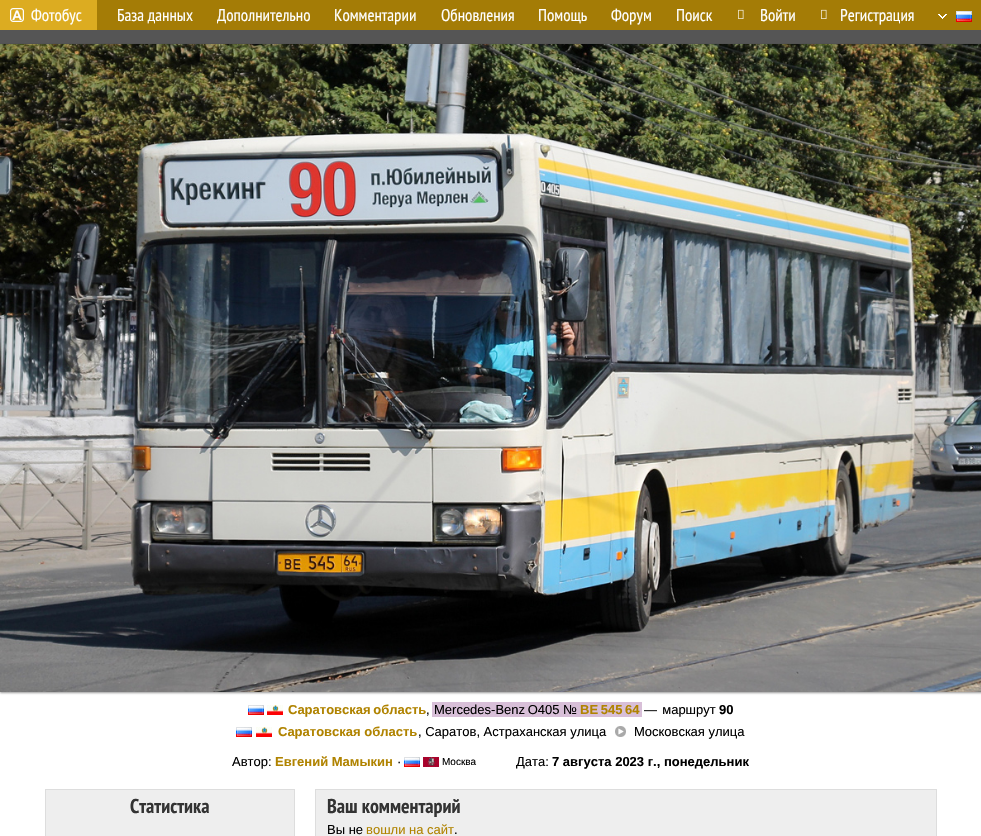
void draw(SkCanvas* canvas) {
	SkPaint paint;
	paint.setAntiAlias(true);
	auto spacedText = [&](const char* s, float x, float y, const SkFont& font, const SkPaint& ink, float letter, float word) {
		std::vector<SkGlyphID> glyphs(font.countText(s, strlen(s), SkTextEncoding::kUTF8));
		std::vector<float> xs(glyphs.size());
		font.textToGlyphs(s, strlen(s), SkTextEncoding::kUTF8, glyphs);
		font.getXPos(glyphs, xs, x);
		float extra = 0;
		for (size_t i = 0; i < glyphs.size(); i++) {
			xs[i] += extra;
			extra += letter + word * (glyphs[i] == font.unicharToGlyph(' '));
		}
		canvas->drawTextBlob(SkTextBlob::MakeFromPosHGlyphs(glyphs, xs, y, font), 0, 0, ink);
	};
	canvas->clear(0xffffffff);
	paint.setColor(0xffa47c06);
	canvas->drawRect(SkRect::MakeXYWH(97, 0, 884, 30), paint);
	paint.setColor(0xffdcac21);
	canvas->drawRect(SkRect::MakeXYWH(0, 0, 97, 30), paint);
	canvas->drawImageRect(SkImages::DeferredFromEncodedData(SkData::MakeFromFileName("img1.png")), SkRect::MakeXYWH(10, 8, 14, 14), SkSamplingOptions());
	SkFont f1(fontMgr->matchFamilyStyle("PT Sans Narrow", SkFontStyle::Normal()), 17);
	f1.setSubpixel(true);
	paint.setColor(0xffffffff);
	canvas->drawString("Фотобус", 31, 21, f1, paint);
	canvas->drawString("База данных", 117, 21, f1, paint);
	canvas->drawString("Дополнительно", 217, 21, f1, paint);
	canvas->drawString("Комментарии", 334, 21, f1, paint);
	canvas->drawString("Обновления", 441, 21, f1, paint);
	canvas->drawString("Помощь", 538, 21, f1, paint);
	canvas->drawString("Форум", 611, 21, f1, paint);
	canvas->drawString("Поиск", 676, 21, f1, paint);
	canvas->drawImageRect(SkImages::DeferredFromEncodedData(SkData::MakeFromFileName("img2.png")), SkRect::MakeXYWH(738, 9, 6, 10), SkSamplingOptions());
	canvas->drawString("Войти", 760, 21, f1, paint);
	canvas->drawImageRect(SkImages::DeferredFromEncodedData(SkData::MakeFromFileName("img2.png")), SkRect::MakeXYWH(821, 9, 6, 10), SkSamplingOptions());
	canvas->drawString("Регистрация", 840, 21, f1, paint);
	canvas->drawImageRect(SkImages::DeferredFromEncodedData(SkData::MakeFromFileName("img3.png")), SkRect::MakeXYWH(938, 14, 9, 5), SkSamplingOptions());
	canvas->drawImageRect(SkImages::DeferredFromEncodedData(SkData::MakeFromFileName("img4.png")), SkRect::MakeXYWH(956, 11, 16, 11), SkSamplingOptions());
	paint.setColor(0xff555555);
	canvas->drawRect(SkRect::MakeXYWH(0, 30, 981, 14), paint);
	paint.setColor(0x66000000);
	paint.setMaskFilter(SkMaskFilter::MakeBlur(kNormal_SkBlurStyle, 1));
	canvas->drawRect(SkRect::MakeXYWH(0, 45, 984, 648), paint);
	paint.setMaskFilter(nullptr);
	canvas->drawImageRect(SkImages::DeferredFromEncodedData(SkData::MakeFromFileName("img5.png")), SkRect::MakeXYWH(0, 44, 981, 648), SkSamplingOptions());
	canvas->drawImageRect(SkImages::DeferredFromEncodedData(SkData::MakeFromFileName("img6.png")), SkRect::MakeXYWH(248, 705, 16, 10), SkSamplingOptions());
	canvas->drawImageRect(SkImages::DeferredFromEncodedData(SkData::MakeFromFileName("img7.png")), SkRect::MakeXYWH(267, 705, 16, 10), SkSamplingOptions());
	SkFont f2(fontMgr->matchFamilyStyle("Liberation Sans", SkFontStyle::Bold()), 13);
	f2.setSubpixel(true);
	paint.setColor(0xffb08300);
	spacedText("Саратовская область", 288, 714, f2, paint, 0, -1);
	SkFont f3(fontMgr->matchFamilyStyle("Liberation Sans", SkFontStyle::Normal()), 13);
	f3.setSubpixel(true);
	paint.setColor(0xff000000);
	canvas->drawString(",", 426, 714, f3, paint);
	paint.setColor(0xffd8bfd8);
	canvas->drawRect(SkRect::MakeXYWH(432, 702, 210, 15), paint);
	paint.setColor(0xff000000);
	spacedText("Mercedes-Benz O405", 434, 714, f3, paint, 0, -1);
	canvas->drawString("№", 563, 714, f3, paint);
	paint.setColor(0xffb08300);
	spacedText("ВЕ 545 64", 580, 714, f2, paint, 0, -1);
	paint.setColor(0xff000000);
	spacedText("—  маршрут", 644, 714, f3, paint, 0, -1);
	canvas->drawString("90", 719, 714, f2, paint);
	canvas->drawImageRect(SkImages::DeferredFromEncodedData(SkData::MakeFromFileName("img6.png")), SkRect::MakeXYWH(236, 727, 16, 10), SkSamplingOptions());
	canvas->drawImageRect(SkImages::DeferredFromEncodedData(SkData::MakeFromFileName("img7.png")), SkRect::MakeXYWH(256, 727, 16, 10), SkSamplingOptions());
	paint.setColor(0xffb08300);
	canvas->drawString("Саратовская область", 278, 736, f2, paint);
	paint.setColor(0xff000000);
	canvas->drawString(", Саратов, Астраханская улица", 418, 736, f3, paint);
	canvas->drawImageRect(SkImages::DeferredFromEncodedData(SkData::MakeFromFileName("img8.png")), SkRect::MakeXYWH(615, 726, 11, 11), SkSamplingOptions());
	canvas->drawString("Московская улица", 634, 736, f3, paint);
	canvas->drawString("Автор:", 232, 766, f3, paint);
	paint.setColor(0xffb08300);
	canvas->drawString("Евгений Мамыкин", 275, 766, f2, paint);
	paint.setColor(0xff000000);
	canvas->drawString("·", 397, 766, f3, paint);
	canvas->drawImageRect(SkImages::DeferredFromEncodedData(SkData::MakeFromFileName("img6.png")), SkRect::MakeXYWH(404, 757, 16, 10), SkSamplingOptions());
	canvas->drawImageRect(SkImages::DeferredFromEncodedData(SkData::MakeFromFileName("img9.png")), SkRect::MakeXYWH(423, 757, 16, 10), SkSamplingOptions());
	SkFont f4(fontMgr->matchFamilyStyle("Liberation Sans", SkFontStyle::Normal()), 10);
	f4.setSubpixel(true);
	canvas->drawString("Москва", 442, 765, f4, paint);
	canvas->drawString("Дата:", 516, 766, f3, paint);
	canvas->drawString("7 августа 2023 г., понедельник", 552, 766, f2, paint);
	paint.setColor(0xffeeeeee);
	canvas->drawRect(SkRect::MakeXYWH(45.5, 789.5, 249, 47), paint);
	paint.setStroke(true);
	paint.setStrokeWidth(1);
	paint.setColor(0xffdddddd);
	canvas->drawRect(SkRect::MakeXYWH(45.5, 789.5, 249, 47), paint);
	SkFont f5(fontMgr->matchFamilyStyle("PT Sans Narrow", SkFontStyle::Bold()), 20);
	f5.setSubpixel(true);
	paint.setStroke(false);
	paint.setColor(0xff333333);
	canvas->drawString("Статистика", 130, 813, f5, paint);
	paint.setColor(0xffeeeeee);
	canvas->drawRect(SkRect::MakeXYWH(315.5, 789.5, 621, 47), paint);
	paint.setStroke(true);
	paint.setColor(0xffdddddd);
	canvas->drawRect(SkRect::MakeXYWH(315.5, 789.5, 621, 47), paint);
	paint.setStroke(false);
	paint.setColor(0xff333333);
	canvas->drawString("Ваш комментарий", 327, 813, f5, paint);
	paint.setColor(0xff000000);
	canvas->drawString("Вы не", 327, 834, f3, paint);
	paint.setColor(0xffb08300);
	canvas->drawString("вошли на сайт", 366, 834, f3, paint);
	paint.setColor(0xff000000);
	canvas->drawString(".", 454, 834, f3, paint);
}
